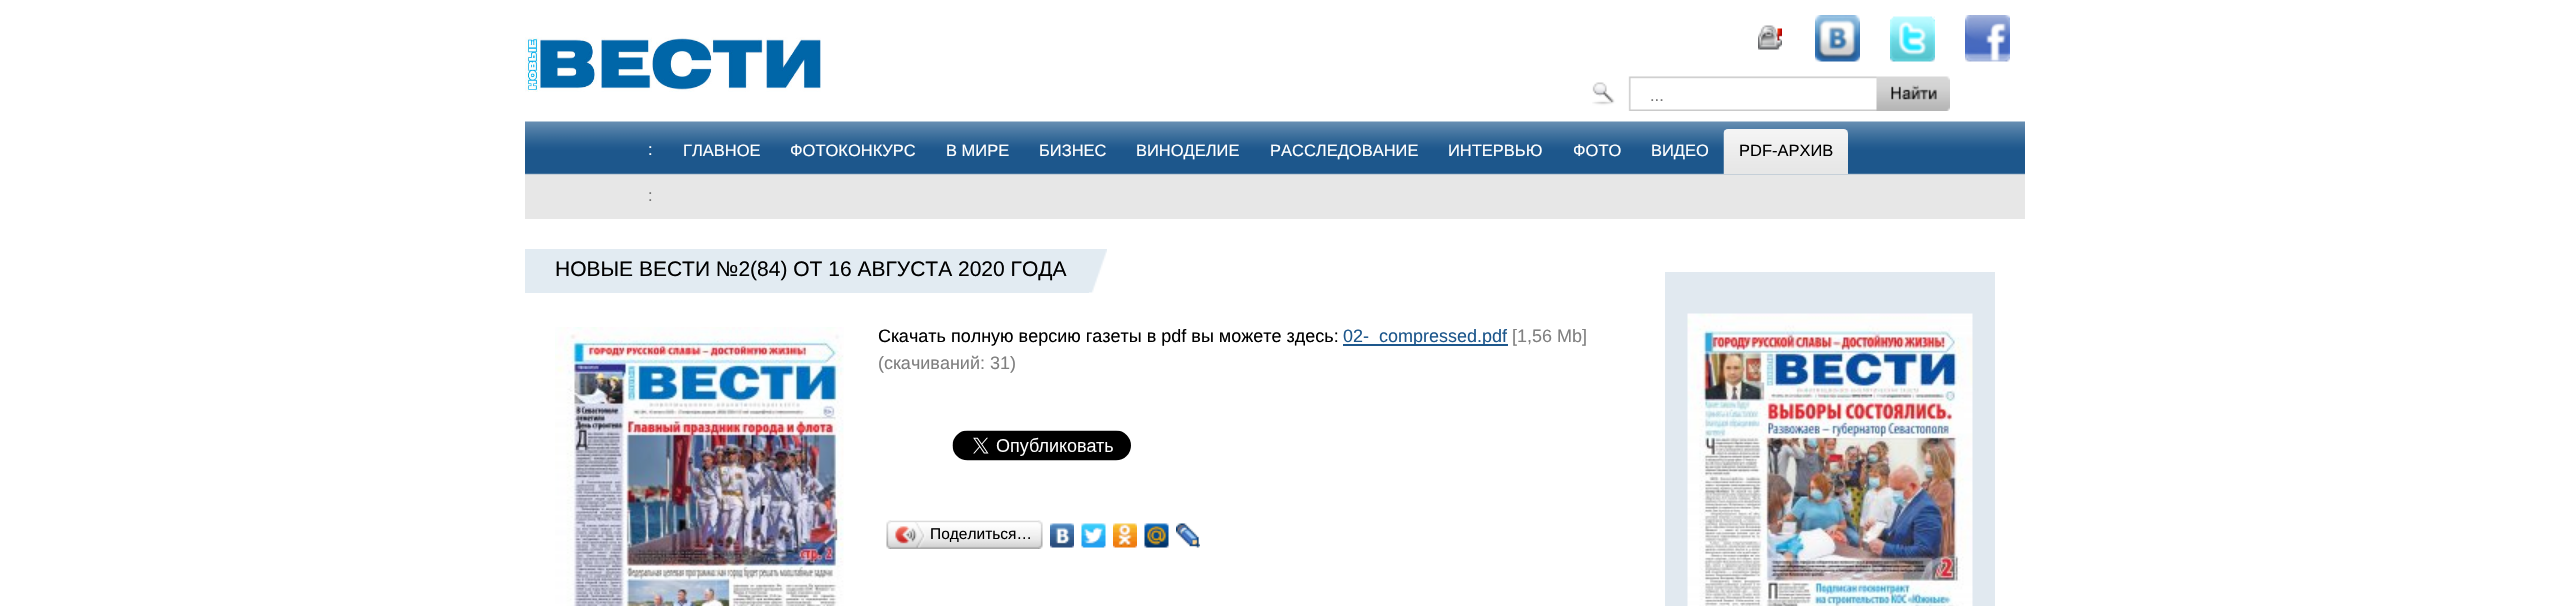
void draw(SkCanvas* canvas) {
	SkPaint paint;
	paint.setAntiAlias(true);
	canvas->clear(0xffffffff);
	canvas->drawImageRect(SkImages::DeferredFromEncodedData(SkData::MakeFromFileName("img1.png")), SkRect::MakeXYWH(525, 37, 296, 55), SkSamplingOptions());
	canvas->drawImageRect(SkImages::DeferredFromEncodedData(SkData::MakeFromFileName("img2.png")), SkRect::MakeXYWH(1758, 25, 24, 25), SkSamplingOptions());
	canvas->drawImageRect(SkImages::DeferredFromEncodedData(SkData::MakeFromFileName("img3.png")), SkRect::MakeXYWH(1815, 15, 45, 47), SkSamplingOptions());
	canvas->drawImageRect(SkImages::DeferredFromEncodedData(SkData::MakeFromFileName("img4.png")), SkRect::MakeXYWH(1890, 16, 45, 46), SkSamplingOptions());
	canvas->drawImageRect(SkImages::DeferredFromEncodedData(SkData::MakeFromFileName("img5.png")), SkRect::MakeXYWH(1965, 15, 45, 47), SkSamplingOptions());
	canvas->drawImageRect(SkImages::DeferredFromEncodedData(SkData::MakeFromFileName("img6.png")), SkRect::MakeXYWH(1592, 76, 358, 35), SkSamplingOptions());
	SkFont f1(fontMgr->matchFamilyStyle("Liberation Sans", SkFontStyle::Normal()), 16.5);
	f1.setSubpixel(true);
	paint.setColor(0xff757575);
	canvas->drawString("...", 1650, 101, f1, paint);
	canvas->drawImageRect(SkImages::DeferredFromEncodedData(SkData::MakeFromFileName("img7.png")), SkRect::MakeXYWH(525, 121, 1500, 98), SkSamplingOptions());
	paint.setColor(0xffffffff);
	canvas->drawString(":", 648, 155, f1, paint);
	paint.setColor(0xff757575);
	canvas->drawString(":", 648, 201, f1, paint);
	paint.setColor(0xffffffff);
	canvas->drawString("ГЛАВНОЕ", 683, 156, f1, paint);
	canvas->drawString("ФОТОКОНКУРС", 790, 156, f1, paint);
	canvas->drawString("В МИРЕ", 946, 156, f1, paint);
	canvas->drawString("БИЗНЕС", 1039, 156, f1, paint);
	canvas->drawString("ВИНОДЕЛИЕ", 1136, 156, f1, paint);
	canvas->drawString("РАССЛЕДОВАНИЕ", 1270, 156, f1, paint);
	canvas->drawString("ИНТЕРВЬЮ", 1448, 156, f1, paint);
	canvas->drawString("ФОТО", 1573, 156, f1, paint);
	canvas->drawString("ВИДЕО", 1651, 156, f1, paint);
	canvas->drawImageRect(SkImages::DeferredFromEncodedData(SkData::MakeFromFileName("img8.png")), SkRect::MakeXYWH(1723, 129, 125, 45), SkSamplingOptions());
	paint.setColor(0xff000000);
	canvas->drawString("PDF-АРХИВ", 1739, 156, f1, paint);
	paint.setColor(0xffe2ebf2);
	canvas->drawRect(SkRect::MakeXYWH(525, 249, 564, 44), paint);
	SkFont f2(fontMgr->matchFamilyStyle("Liberation Sans", SkFontStyle::Normal()), 21);
	f2.setSubpixel(true);
	paint.setColor(0xff000000);
	canvas->drawString("НОВЫЕ ВЕСТИ №2(84) ОТ 16 АВГУСТА 2020 ГОДА", 555, 276, f2, paint);
	canvas->drawImageRect(SkImages::DeferredFromEncodedData(SkData::MakeFromFileName("img9.png")), SkRect::MakeXYWH(1089, 249, 18, 44), SkSamplingOptions());
	canvas->drawImageRect(SkImages::DeferredFromEncodedData(SkData::MakeFromFileName("img10.png")), SkRect::MakeXYWH(555, 327, 289, 279), SkSamplingOptions());
	SkFont f3(fontMgr->matchFamilyStyle("Liberation Sans", SkFontStyle::Normal()), 18);
	f3.setSubpixel(true);
	canvas->drawString("Скачать полную версию газеты в pdf вы можете здесь:", 878, 342, f3, paint);
	paint.setColor(0xff1d578c);
	canvas->drawRect(SkRect::MakeXYWH(1343, 344, 165, 2), paint);
	canvas->drawString("02-_compressed.pdf", 1343, 342, f3, paint);
	paint.setColor(0xff808080);
	canvas->drawString("[1,56 Mb]", 1512, 342, f3, paint);
	canvas->drawString("(cкачиваний: 31)", 878, 369, f3, paint);
	canvas->drawImageRect(SkImages::DeferredFromEncodedData(SkData::MakeFromFileName("img11.png")), SkRect::MakeXYWH(952, 430, 179, 31), SkSamplingOptions());
	canvas->drawImageRect(SkImages::DeferredFromEncodedData(SkData::MakeFromFileName("img12.png")), SkRect::MakeXYWH(891, 520, 147, 29), SkSamplingOptions());
	canvas->drawImageRect(SkImages::DeferredFromEncodedData(SkData::MakeFromFileName("img13.png")), SkRect::MakeXYWH(886, 520, 5, 29), SkSamplingOptions());
	canvas->drawImageRect(SkImages::DeferredFromEncodedData(SkData::MakeFromFileName("img14.png")), SkRect::MakeXYWH(895, 522, 31, 26), SkSamplingOptions());
	SkFont f4(fontMgr->matchFamilyStyle("Liberation Sans", SkFontStyle::Normal()), 15.5);
	f4.setSubpixel(true);
	paint.setColor(0xff000000);
	canvas->drawString("Поделиться…", 930, 539, f4, paint);
	canvas->drawImageRect(SkImages::DeferredFromEncodedData(SkData::MakeFromFileName("img15.png")), SkRect::MakeXYWH(1038, 520, 5, 29), SkSamplingOptions());
	canvas->drawImageRect(SkImages::DeferredFromEncodedData(SkData::MakeFromFileName("img16.png")), SkRect::MakeXYWH(1050, 523, 24, 25), SkSamplingOptions());
	canvas->drawImageRect(SkImages::DeferredFromEncodedData(SkData::MakeFromFileName("img17.png")), SkRect::MakeXYWH(1081, 523, 25, 25), SkSamplingOptions());
	canvas->drawImageRect(SkImages::DeferredFromEncodedData(SkData::MakeFromFileName("img18.png")), SkRect::MakeXYWH(1113, 523, 24, 25), SkSamplingOptions());
	canvas->drawImageRect(SkImages::DeferredFromEncodedData(SkData::MakeFromFileName("img19.png")), SkRect::MakeXYWH(1144, 523, 25, 25), SkSamplingOptions());
	canvas->drawImageRect(SkImages::DeferredFromEncodedData(SkData::MakeFromFileName("img20.png")), SkRect::MakeXYWH(1176, 523, 24, 25), SkSamplingOptions());
	paint.setColor(0xffe1e9f0);
	canvas->drawRect(SkRect::MakeXYWH(1665, 272, 330, 334), paint);
	canvas->drawImageRect(SkImages::DeferredFromEncodedData(SkData::MakeFromFileName("img21.png")), SkRect::MakeXYWH(1687, 313, 286, 293), SkSamplingOptions());
}
